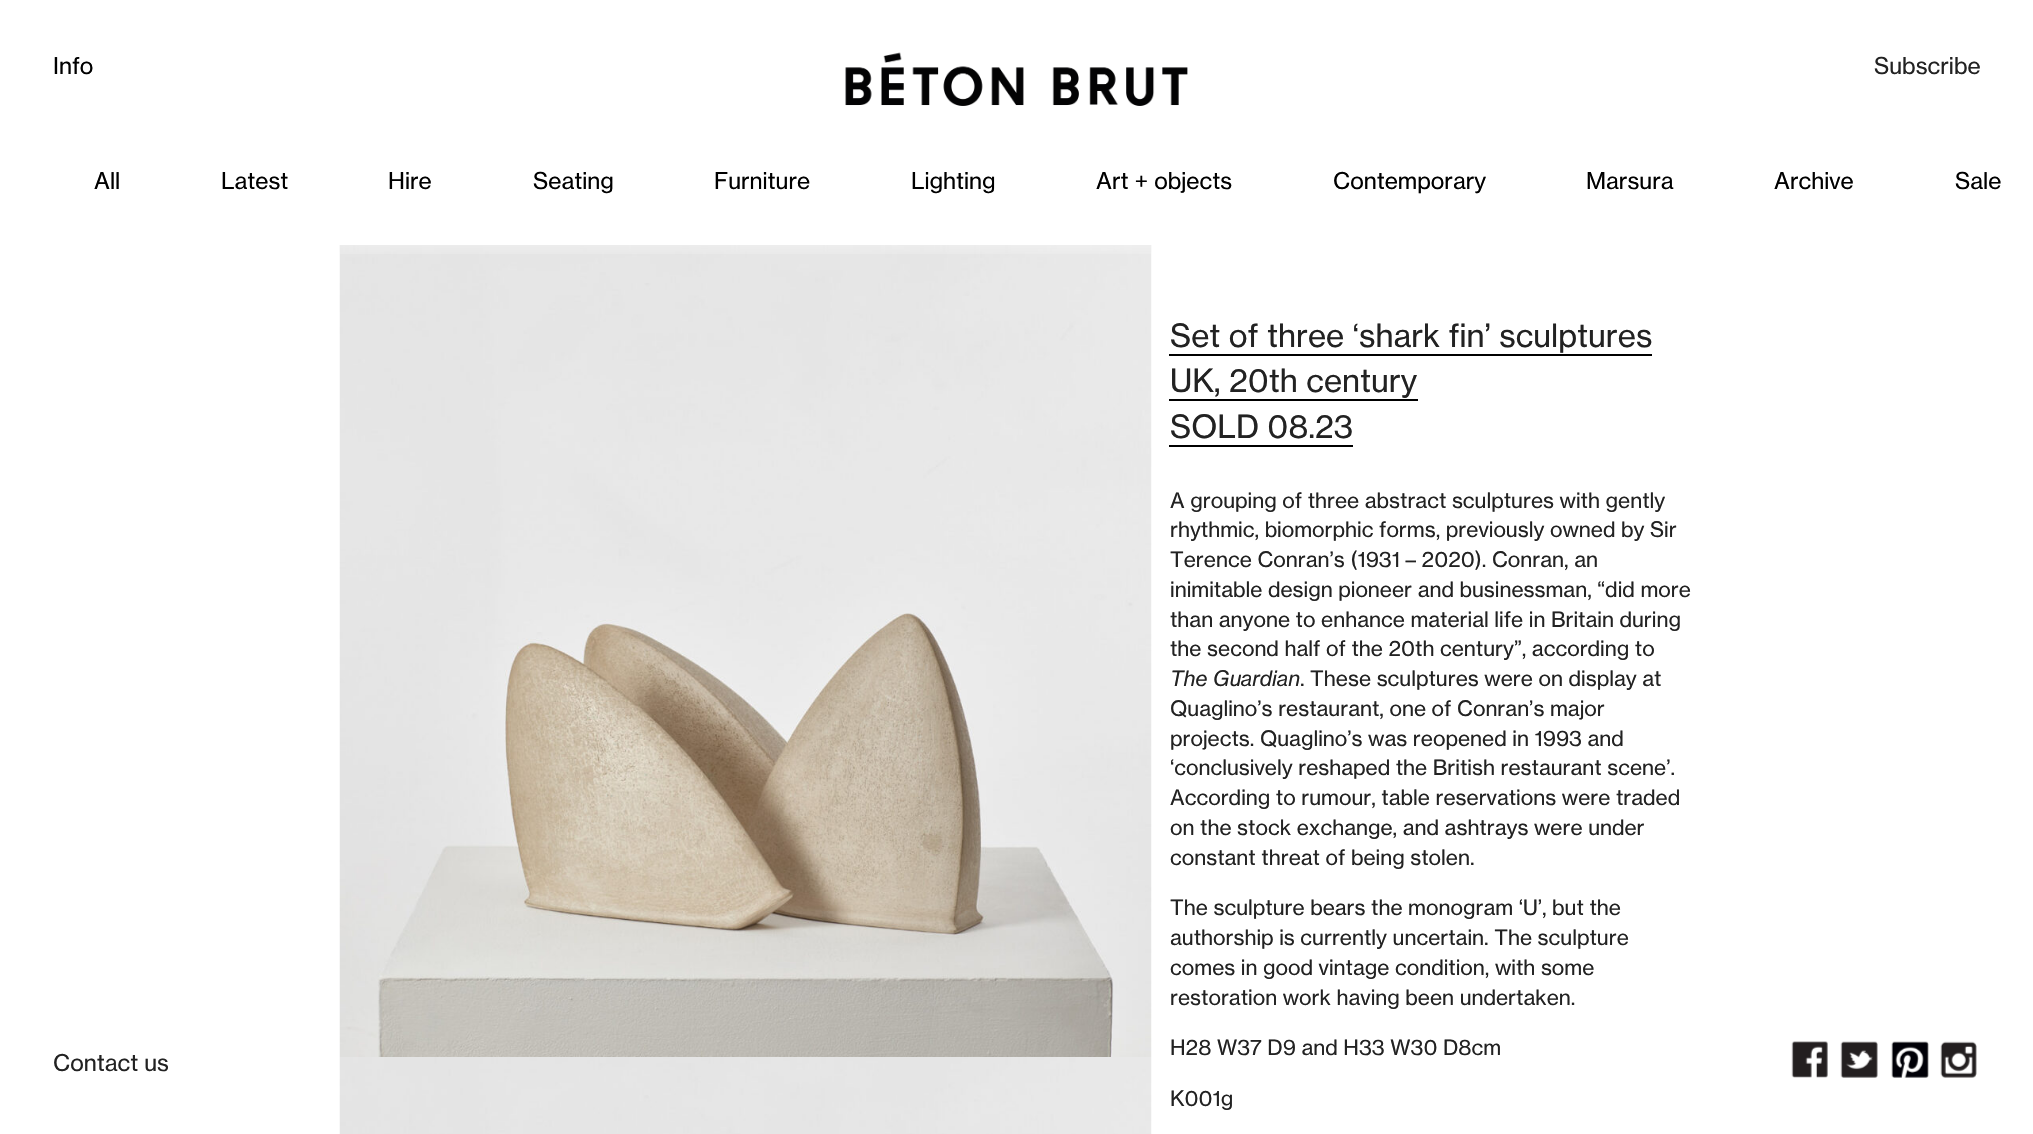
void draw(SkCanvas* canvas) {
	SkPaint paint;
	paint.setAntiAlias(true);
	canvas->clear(0xffffffff);
	SkFont f1(fontMgr->matchFamilyStyle("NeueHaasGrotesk", SkFontStyle::Normal()), 22.75);
	f1.setSubpixel(true);
	paint.setColor(0xff000000);
	canvas->drawString("Info", 53, 74, f1, paint);
	canvas->drawImageRect(SkImages::DeferredFromEncodedData(SkData::MakeFromFileName("img1.png")), SkRect::MakeXYWH(845, 52, 343, 54), SkSamplingOptions());
	paint.setColor(0xff222222);
	canvas->drawString("Subscribe", 1874, 74, f1, paint);
	paint.setColor(0xff000000);
	canvas->drawString("All", 94, 189, f1, paint);
	canvas->drawString("Latest", 221, 189, f1, paint);
	canvas->drawString("Hire", 388, 189, f1, paint);
	canvas->drawString("Seating", 533, 189, f1, paint);
	canvas->drawString("Furniture", 714, 189, f1, paint);
	canvas->drawString("Lighting", 911, 189, f1, paint);
	canvas->drawString("Art + objects", 1096, 189, f1, paint);
	canvas->drawString("Contemporary", 1333, 189, f1, paint);
	canvas->drawString("Marsura", 1586, 189, f1, paint);
	canvas->drawString("Archive", 1774, 189, f1, paint);
	canvas->drawString("Sale", 1955, 189, f1, paint);
	paint.setColor(0xff222222);
	canvas->drawString("Contact us", 53, 1071, f1, paint);
	canvas->drawImageRect(SkImages::DeferredFromEncodedData(SkData::MakeFromFileName("img2.png")), SkRect::MakeXYWH(1791, 1041, 37, 37), SkSamplingOptions());
	canvas->drawImageRect(SkImages::DeferredFromEncodedData(SkData::MakeFromFileName("img3.png")), SkRect::MakeXYWH(1840, 1041, 38, 37), SkSamplingOptions());
	canvas->drawImageRect(SkImages::DeferredFromEncodedData(SkData::MakeFromFileName("img4.png")), SkRect::MakeXYWH(1891, 1041, 38, 37), SkSamplingOptions());
	canvas->drawImageRect(SkImages::DeferredFromEncodedData(SkData::MakeFromFileName("img5.png")), SkRect::MakeXYWH(1940, 1041, 37, 37), SkSamplingOptions());
	canvas->drawImageRect(SkImages::DeferredFromEncodedData(SkData::MakeFromFileName("img7.png")), SkRect::MakeXYWH(339, 245, 813, 812), SkSamplingOptions());
	canvas->drawImageRect(SkImages::DeferredFromEncodedData(SkData::MakeFromFileName("img6.png")), SkRect::MakeXYWH(340, 245, 811, 9), SkSamplingOptions());
	canvas->drawImageRect(SkImages::DeferredFromEncodedData(SkData::MakeFromFileName("img8.png")), SkRect::MakeXYWH(339, 1057, 813, 77), SkSamplingOptions());
	SkFont f2(fontMgr->matchFamilyStyle("NeueHaasGrotesk", SkFontStyle::Normal()), 31.5);
	f2.setSubpixel(true);
	canvas->drawString("Set of three ‘shark fin’ sculptures", 1170, 347, f2, paint);
	paint.setColor(0xff000000);
	canvas->drawRect(SkRect::MakeXYWH(1169, 354, 483, 2), paint);
	paint.setColor(0xff222222);
	canvas->drawString("UK, 20th century", 1170, 392, f2, paint);
	paint.setColor(0xff000000);
	canvas->drawRect(SkRect::MakeXYWH(1169, 399, 249, 2), paint);
	paint.setColor(0xff222222);
	canvas->drawString("SOLD 08.23", 1170, 438, f2, paint);
	paint.setColor(0xff000000);
	canvas->drawRect(SkRect::MakeXYWH(1169, 445, 184, 2), paint);
	SkFont f3(fontMgr->matchFamilyStyle("NeueHaasGrotesk", SkFontStyle::Normal()), 21);
	f3.setSubpixel(true);
	paint.setColor(0xff222222);
	canvas->drawString("A grouping of three abstract sculptures with gently", 1170, 508, f3, paint);
	canvas->drawString("rhythmic, biomorphic forms, previously owned by Sir", 1170, 537, f3, paint);
	canvas->drawString("Terence Conran’s (1931 – 2020). Conran, an", 1170, 567, f3, paint);
	canvas->drawString("inimitable design pioneer and businessman, “did more", 1170, 597, f3, paint);
	canvas->drawString("than anyone to enhance material life in Britain during", 1170, 627, f3, paint);
	canvas->drawString("the second half of the 20th century”, according to", 1170, 656, f3, paint);
	SkFont f4(fontMgr->matchFamilyStyle("NeueHaasGrotesk", SkFontStyle::Italic()), 21);
	f4.setSubpixel(true);
	canvas->drawString("The Guardian", 1170, 686, f4, paint);
	canvas->drawString(". These sculptures were on display at", 1300, 686, f3, paint);
	canvas->drawString("Quaglino’s restaurant, one of Conran’s major", 1170, 716, f3, paint);
	canvas->drawString("projects. Quaglino’s was reopened in 1993 and", 1170, 746, f3, paint);
	canvas->drawString("‘conclusively reshaped the British restaurant scene’.", 1170, 775, f3, paint);
	canvas->drawString("According to rumour, table reservations were traded", 1170, 805, f3, paint);
	canvas->drawString("on the stock exchange, and ashtrays were under", 1170, 835, f3, paint);
	canvas->drawString("constant threat of being stolen.", 1170, 865, f3, paint);
	canvas->drawString("The sculpture bears the monogram ‘U’, but the", 1170, 915, f3, paint);
	canvas->drawString("authorship is currently uncertain. The sculpture", 1170, 945, f3, paint);
	canvas->drawString("comes in good vintage condition, with some", 1170, 975, f3, paint);
	canvas->drawString("restoration work having been undertaken.", 1170, 1005, f3, paint);
	canvas->drawString("H28 W37 D9 and H33 W30 D8cm", 1170, 1055, f3, paint);
	canvas->drawString("K001g", 1170, 1106, f3, paint);
}
